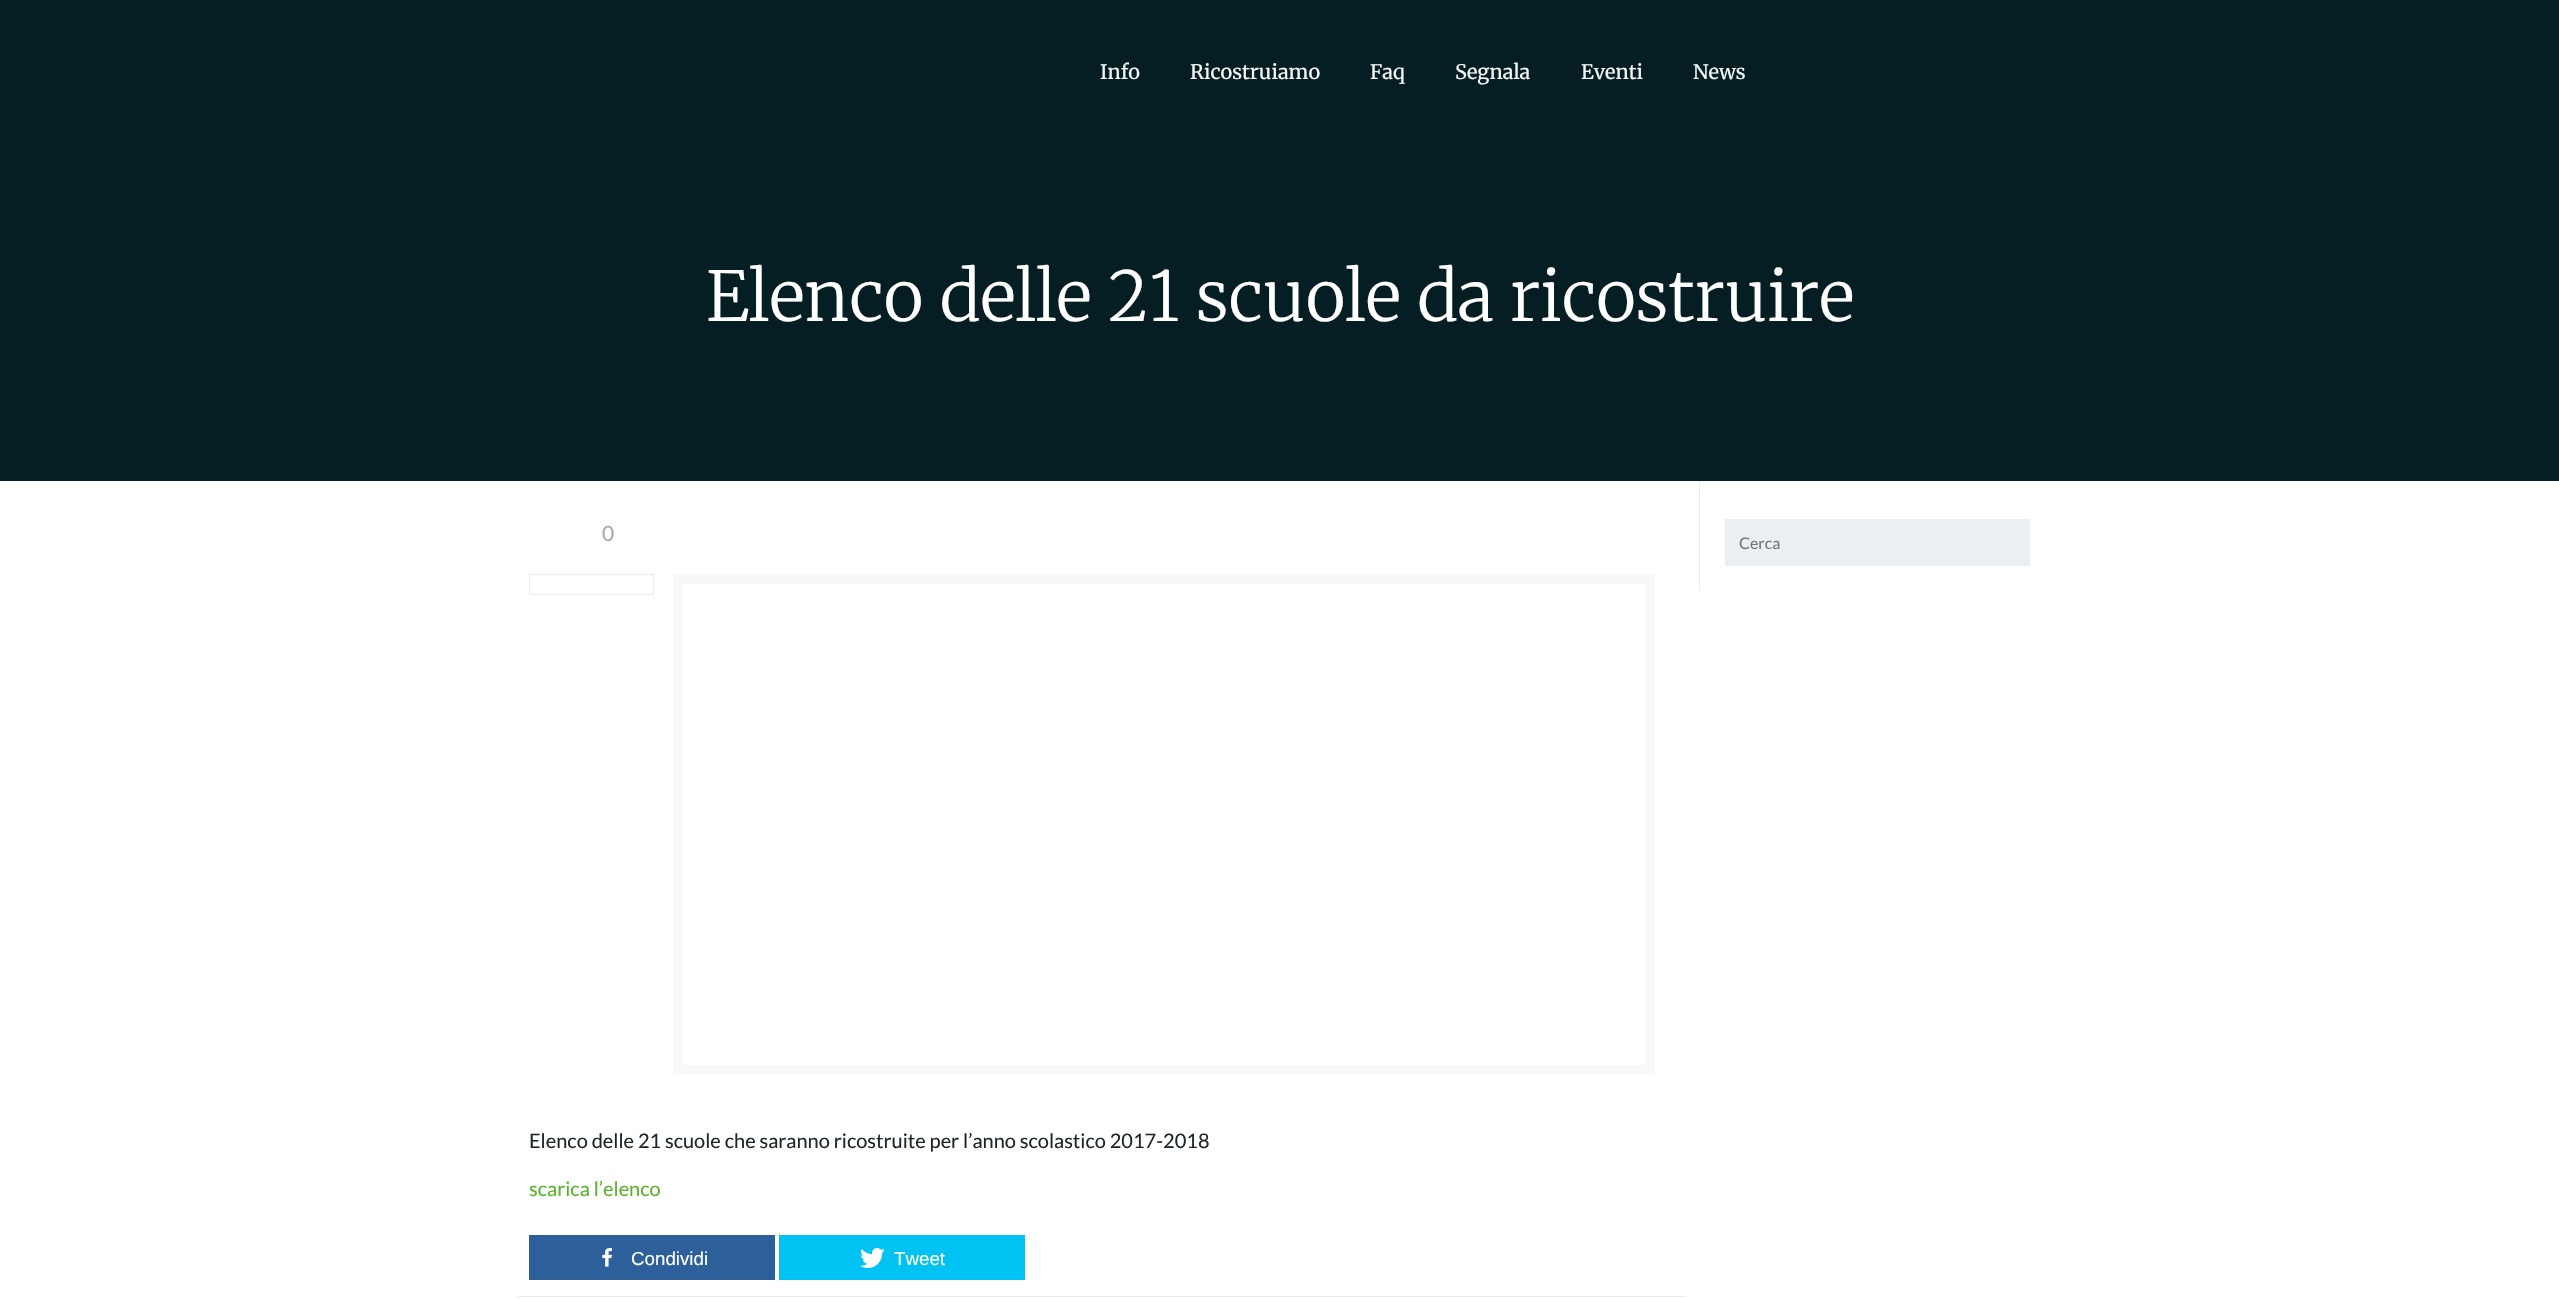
void draw(SkCanvas* canvas) {
	SkPaint paint;
	paint.setAntiAlias(true);
	canvas->clear(0xffffffff);
	paint.setColor(0xff041e24);
	canvas->drawRect(SkRect::MakeXYWH(0, 0, 2559, 481), paint);
	SkFont f1(fontMgr->matchFamilyStyle("Merriweather", SkFontStyle::Normal()), 20);
	f1.setSubpixel(true);
	paint.setColor(0xfff7f8f8);
	canvas->drawString("Info", 1100, 79, f1, paint);
	canvas->drawString("Ricostruiamo", 1190, 79, f1, paint);
	canvas->drawString("Faq", 1370, 79, f1, paint);
	canvas->drawString("Segnala", 1455, 79, f1, paint);
	canvas->drawString("Eventi", 1581, 79, f1, paint);
	canvas->drawString("News", 1693, 79, f1, paint);
	SkFont f2(fontMgr->matchFamilyStyle("Merriweather", SkFontStyle(300, SkFontStyle::kNormal_Width, SkFontStyle::kUpright_Slant)), 68.75);
	f2.setSubpixel(true);
	paint.setColor(0xffffffff);
	canvas->drawString("Elenco delle 21 scuole da ricostruire", 706, 321, f2, paint);
	SkFont f3(fontMgr->matchFamilyStyle("Lato", SkFontStyle::Normal()), 21);
	f3.setSubpixel(true);
	paint.setColor(0xffa8a8a8);
	canvas->drawString("0", 602, 541, f3, paint);
	paint.setStroke(true);
	paint.setStrokeWidth(1);
	paint.setColor(0xffebebeb);
	canvas->drawRect(SkRect::MakeXYWH(529.5, 574.5, 124, 20), paint);
	paint.setStrokeWidth(10);
	paint.setColor(0xfff8f8f8);
	canvas->drawRect(SkRect::MakeXYWH(678, 579, 972, 491), paint);
	SkFont f4(fontMgr->matchFamilyStyle("Lato", SkFontStyle::Normal()), 20);
	f4.setSubpixel(true);
	paint.setStroke(false);
	paint.setColor(0xff1e2922);
	canvas->drawString("Elenco delle 21 scuole che saranno ricostruite per l’anno scolastico 2017-2018", 529, 1148, f4, paint);
	paint.setColor(0xff58b32b);
	canvas->drawString("scarica l’elenco", 529, 1196, f4, paint);
	paint.setColor(0xff2d5f9a);
	canvas->drawRect(SkRect::MakeXYWH(529, 1235, 246, 45), paint);
	canvas->drawImageRect(SkImages::DeferredFromEncodedData(SkData::MakeFromFileName("img1.png")), SkRect::MakeXYWH(602, 1248, 10, 19), SkSamplingOptions());
	SkFont f5(fontMgr->matchFamilyStyle("Liberation Sans", SkFontStyle::Normal()), 18.75);
	f5.setSubpixel(true);
	paint.setColor(0xffffffff);
	canvas->drawString("Condividi", 631, 1265, f5, paint);
	paint.setColor(0xff00c3f3);
	canvas->drawRect(SkRect::MakeXYWH(779, 1235, 246, 45), paint);
	canvas->drawImageRect(SkImages::DeferredFromEncodedData(SkData::MakeFromFileName("img2.png")), SkRect::MakeXYWH(860, 1248, 25, 20), SkSamplingOptions());
	paint.setColor(0xffffffff);
	canvas->drawString("Tweet", 894, 1265, f5, paint);
	paint.setColor(0xffebebeb);
	canvas->drawRect(SkRect::MakeXYWH(518, 1296, 1168, 1), paint);
	canvas->drawRect(SkRect::MakeXYWH(1699, 481, 1, 110), paint);
	paint.setColor(0xffeceff1);
	canvas->drawRect(SkRect::MakeXYWH(1725, 519, 305, 47), paint);
	SkFont f6(fontMgr->matchFamilyStyle("Lato", SkFontStyle::Normal()), 16);
	f6.setSubpixel(true);
	paint.setColor(0xff757575);
	canvas->drawString("Cerca", 1739, 549, f6, paint);
}
